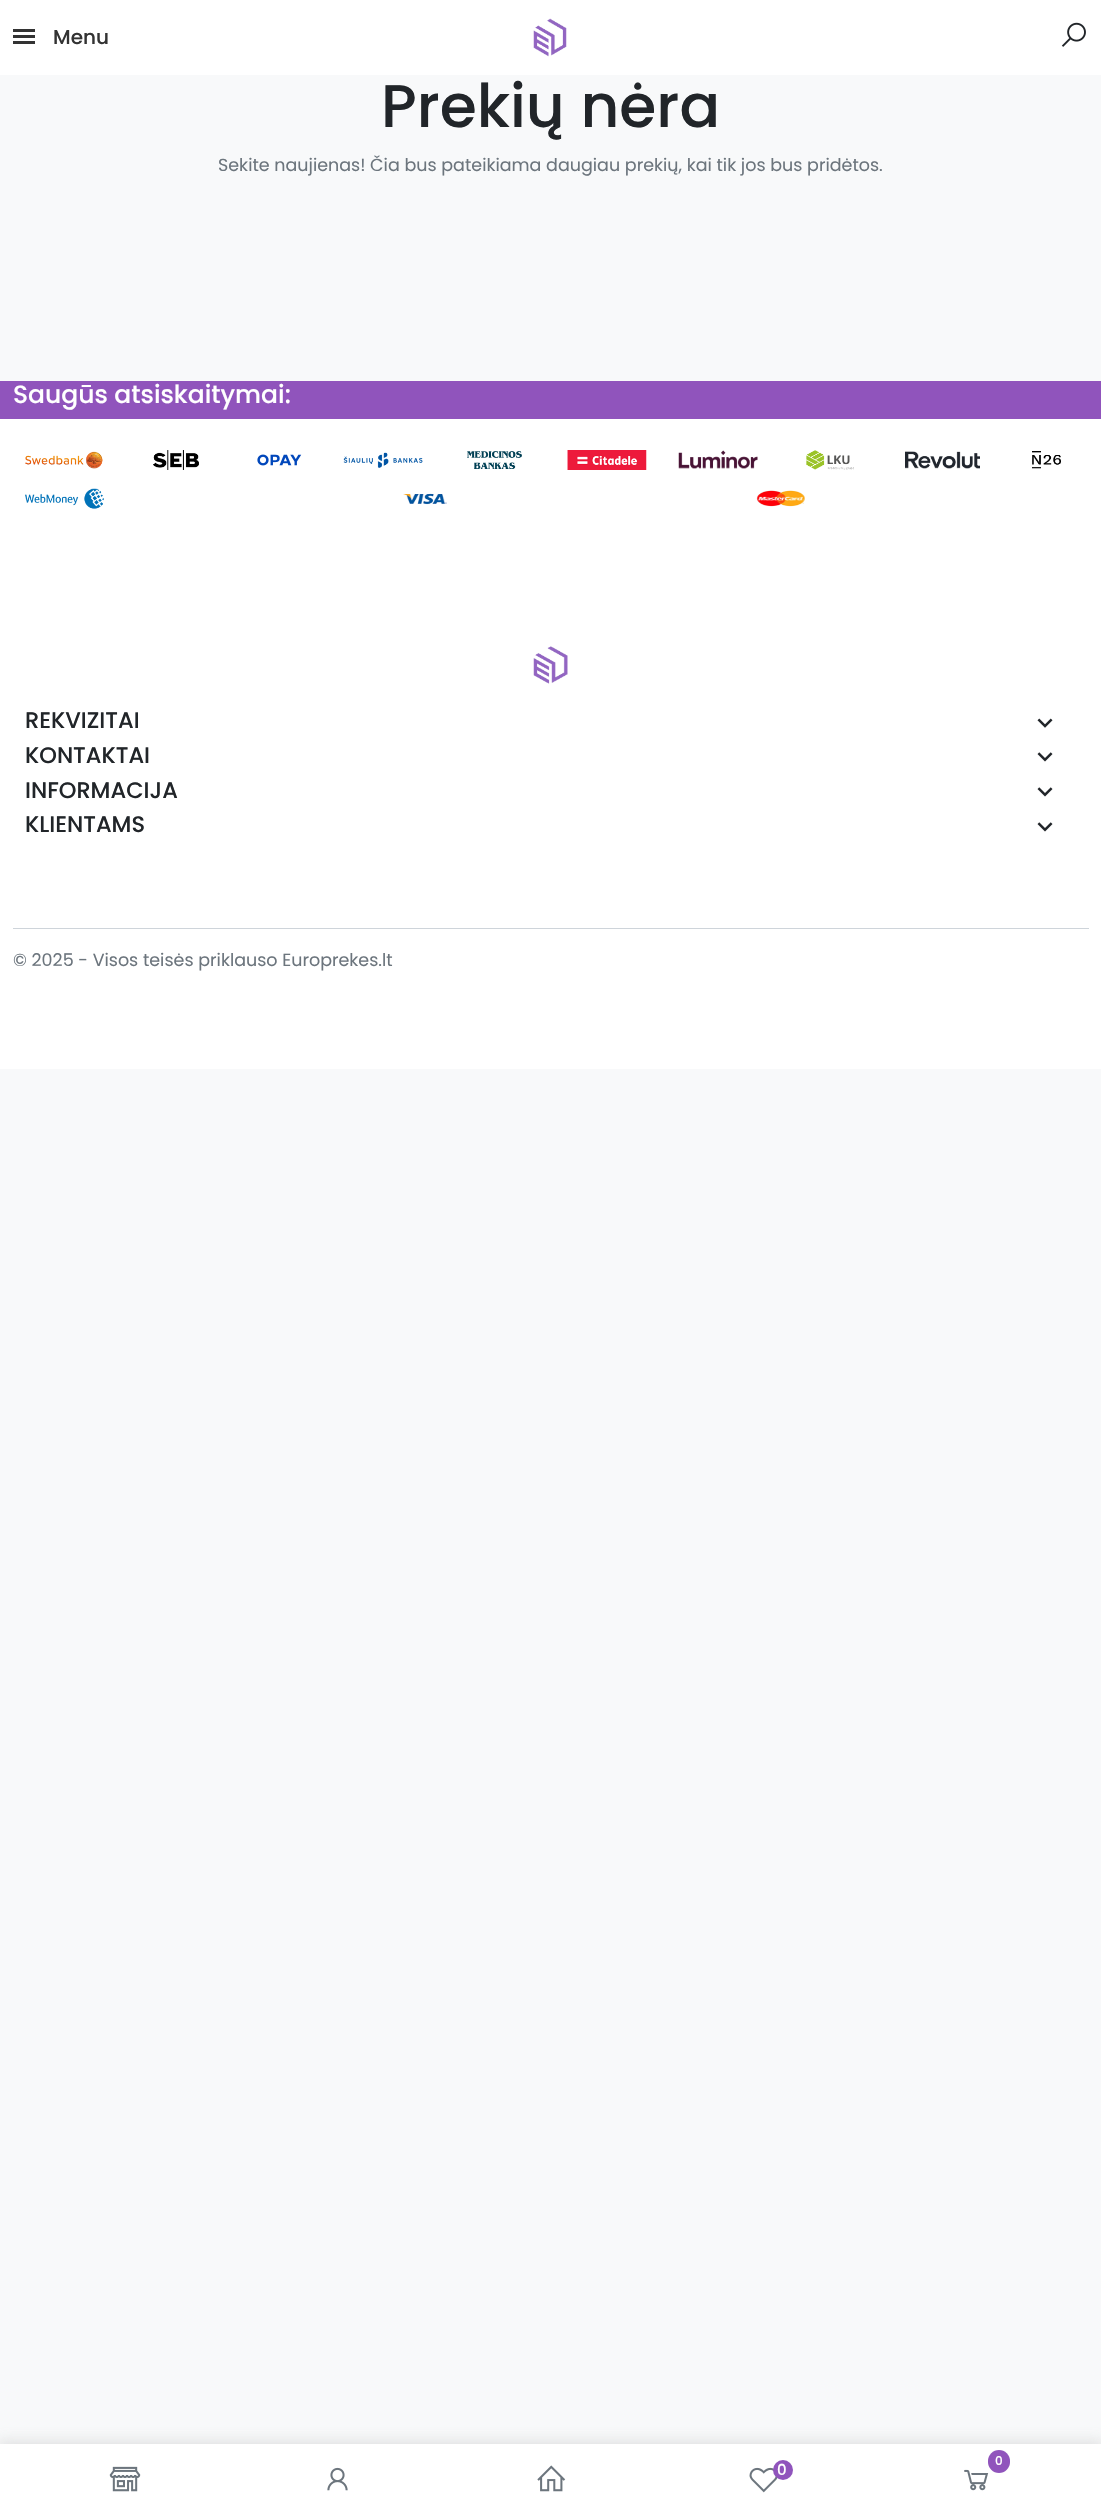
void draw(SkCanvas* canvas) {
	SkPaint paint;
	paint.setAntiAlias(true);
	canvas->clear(0xfff8f9fa);
	paint.setColor(0xffffffff);
	canvas->drawRect(SkRect::MakeXYWH(0, 0, 1101, 75), paint);
	paint.setColor(0xff333333);
	canvas->drawRect(SkRect::MakeXYWH(13, 29, 22, 3), paint);
	canvas->drawRect(SkRect::MakeXYWH(13, 35, 22, 3), paint);
	canvas->drawRect(SkRect::MakeXYWH(13, 41, 22, 3), paint);
	SkFont f1(fontMgr->matchFamilyStyle("Poppins", SkFontStyle(500, SkFontStyle::kNormal_Width, SkFontStyle::kUpright_Slant)), 20);
	f1.setSubpixel(true);
	canvas->drawString("Menu", 53, 44, f1, paint);
	canvas->drawImageRect(SkImages::DeferredFromEncodedData(SkData::MakeFromFileName("img1.png")), SkRect::MakeXYWH(533, 18, 34, 39), SkSamplingOptions());
	canvas->drawImageRect(SkImages::DeferredFromEncodedData(SkData::MakeFromFileName("img2.png")), SkRect::MakeXYWH(1061, 22, 25, 25), SkSamplingOptions());
	paint.setColor(0x4d8f8f8f);
	paint.setMaskFilter(SkMaskFilter::MakeBlur(kNormal_SkBlurStyle, 7.5));
	canvas->drawRect(SkRect::MakeXYWH(-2, 2443, 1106, 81), paint);
	paint.setMaskFilter(nullptr);
	paint.setColor(0xffffffff);
	canvas->drawRect(SkRect::MakeXYWH(0, 2444, 1101, 76), paint);
	canvas->drawImageRect(SkImages::DeferredFromEncodedData(SkData::MakeFromFileName("img3.png")), SkRect::MakeXYWH(964, 2469, 25, 22), SkSamplingOptions());
	paint.setColor(0xff9054bc);
	canvas->drawRoundRect(SkRect::MakeXYWH(988, 2450, 22, 23), 11, 11, paint);
	SkFont f2(fontMgr->matchFamilyStyle("Poppins", SkFontStyle(500, SkFontStyle::kNormal_Width, SkFontStyle::kUpright_Slant)), 12);
	f2.setSubpixel(true);
	paint.setColor(0xffffffff);
	canvas->drawString("0", 995, 2465, f2, paint);
	canvas->drawImageRect(SkImages::DeferredFromEncodedData(SkData::MakeFromFileName("img4.png")), SkRect::MakeXYWH(109, 2466, 32, 26), SkSamplingOptions());
	canvas->drawImageRect(SkImages::DeferredFromEncodedData(SkData::MakeFromFileName("img5.png")), SkRect::MakeXYWH(327, 2467, 21, 24), SkSamplingOptions());
	canvas->drawImageRect(SkImages::DeferredFromEncodedData(SkData::MakeFromFileName("img6.png")), SkRect::MakeXYWH(537, 2465, 29, 27), SkSamplingOptions());
	canvas->drawImageRect(SkImages::DeferredFromEncodedData(SkData::MakeFromFileName("img7.png")), SkRect::MakeXYWH(749, 2467, 29, 26), SkSamplingOptions());
	paint.setColor(0xff9054bc);
	canvas->drawCircle(783, 2470, 10, paint);
	SkFont f3(fontMgr->matchFamilyStyle("Poppins", SkFontStyle(500, SkFontStyle::kNormal_Width, SkFontStyle::kUpright_Slant)), 15);
	f3.setSubpixel(true);
	paint.setColor(0xffffffff);
	canvas->drawString("0", 777, 2475, f3, paint);
	SkFont f4(fontMgr->matchFamilyStyle("Poppins", SkFontStyle(500, SkFontStyle::kNormal_Width, SkFontStyle::kUpright_Slant)), 60);
	f4.setSubpixel(true);
	paint.setColor(0xff212529);
	canvas->drawString("Prekių nėra", 381, 127, f4, paint);
	SkFont f5(fontMgr->matchFamilyStyle("Poppins", SkFontStyle::Normal()), 17.5);
	f5.setSubpixel(true);
	paint.setColor(0xff6c757d);
	canvas->drawString("Sekite naujienas! Čia bus pateikiama daugiau prekių, kai tik jos bus pridėtos.", 218, 171, f5, paint);
	paint.setColor(0xffffffff);
	canvas->drawRect(SkRect::MakeXYWH(0, 419, 1101, 650), paint);
	paint.setColor(0xff9054bc);
	canvas->drawRect(SkRect::MakeXYWH(0, 381, 1101, 38), paint);
	SkFont f6(fontMgr->matchFamilyStyle("Poppins", SkFontStyle(500, SkFontStyle::kNormal_Width, SkFontStyle::kUpright_Slant)), 25);
	f6.setSubpixel(true);
	paint.setColor(0xffffffff);
	canvas->drawString("Saugūs atsiskaitymai:", 13, 403, f6, paint);
	canvas->drawImageRect(SkImages::DeferredFromEncodedData(SkData::MakeFromFileName("img8.png")), SkRect::MakeXYWH(25, 451, 78, 18), SkSamplingOptions());
	canvas->drawImageRect(SkImages::DeferredFromEncodedData(SkData::MakeFromFileName("img9.png")), SkRect::MakeXYWH(153, 450, 46, 20), SkSamplingOptions());
	canvas->drawImageRect(SkImages::DeferredFromEncodedData(SkData::MakeFromFileName("img10.png")), SkRect::MakeXYWH(257, 454, 45, 12), SkSamplingOptions());
	canvas->drawImageRect(SkImages::DeferredFromEncodedData(SkData::MakeFromFileName("img11.png")), SkRect::MakeXYWH(343, 452, 80, 16), SkSamplingOptions());
	canvas->drawImageRect(SkImages::DeferredFromEncodedData(SkData::MakeFromFileName("img12.png")), SkRect::MakeXYWH(467, 451, 55, 18), SkSamplingOptions());
	canvas->drawImageRect(SkImages::DeferredFromEncodedData(SkData::MakeFromFileName("img13.png")), SkRect::MakeXYWH(567, 450, 80, 20), SkSamplingOptions());
	canvas->drawImageRect(SkImages::DeferredFromEncodedData(SkData::MakeFromFileName("img14.png")), SkRect::MakeXYWH(678, 450, 80, 19), SkSamplingOptions());
	canvas->drawImageRect(SkImages::DeferredFromEncodedData(SkData::MakeFromFileName("img15.png")), SkRect::MakeXYWH(806, 450, 48, 20), SkSamplingOptions());
	canvas->drawImageRect(SkImages::DeferredFromEncodedData(SkData::MakeFromFileName("img16.png")), SkRect::MakeXYWH(905, 451, 75, 18), SkSamplingOptions());
	canvas->drawImageRect(SkImages::DeferredFromEncodedData(SkData::MakeFromFileName("img17.png")), SkRect::MakeXYWH(1032, 451, 29, 18), SkSamplingOptions());
	canvas->drawImageRect(SkImages::DeferredFromEncodedData(SkData::MakeFromFileName("img18.png")), SkRect::MakeXYWH(25, 488, 79, 21), SkSamplingOptions());
	canvas->drawImageRect(SkImages::DeferredFromEncodedData(SkData::MakeFromFileName("img19.png")), SkRect::MakeXYWH(403, 493, 44, 12), SkSamplingOptions());
	canvas->drawImageRect(SkImages::DeferredFromEncodedData(SkData::MakeFromFileName("img20.png")), SkRect::MakeXYWH(756, 490, 49, 17), SkSamplingOptions());
	canvas->drawImageRect(SkImages::DeferredFromEncodedData(SkData::MakeFromFileName("img21.png")), SkRect::MakeXYWH(533, 646, 35, 38), SkSamplingOptions());
	SkFont f7(fontMgr->matchFamilyStyle("Poppins", SkFontStyle(500, SkFontStyle::kNormal_Width, SkFontStyle::kUpright_Slant)), 22.5);
	f7.setSubpixel(true);
	paint.setColor(0xff212529);
	canvas->drawString("REKVIZITAI", 25, 728, f7, paint);
	canvas->drawImageRect(SkImages::DeferredFromEncodedData(SkData::MakeFromFileName("img22.png")), SkRect::MakeXYWH(1037, 718, 16, 10), SkSamplingOptions());
	canvas->drawString("KONTAKTAI", 25, 763, f7, paint);
	canvas->drawImageRect(SkImages::DeferredFromEncodedData(SkData::MakeFromFileName("img23.png")), SkRect::MakeXYWH(1037, 752, 16, 10), SkSamplingOptions());
	canvas->drawString("INFORMACIJA", 25, 798, f7, paint);
	canvas->drawImageRect(SkImages::DeferredFromEncodedData(SkData::MakeFromFileName("img23.png")), SkRect::MakeXYWH(1037, 787, 16, 10), SkSamplingOptions());
	canvas->drawString("KLIENTAMS", 25, 832, f7, paint);
	canvas->drawImageRect(SkImages::DeferredFromEncodedData(SkData::MakeFromFileName("img23.png")), SkRect::MakeXYWH(1037, 822, 16, 10), SkSamplingOptions());
	paint.setColor(0xffced4da);
	canvas->drawRect(SkRect::MakeXYWH(13, 928, 1076, 1), paint);
	paint.setColor(0xff6c757d);
	canvas->drawString("© 2025 - Visos teisės priklauso Europrekes.lt", 13, 966, f5, paint);
}
